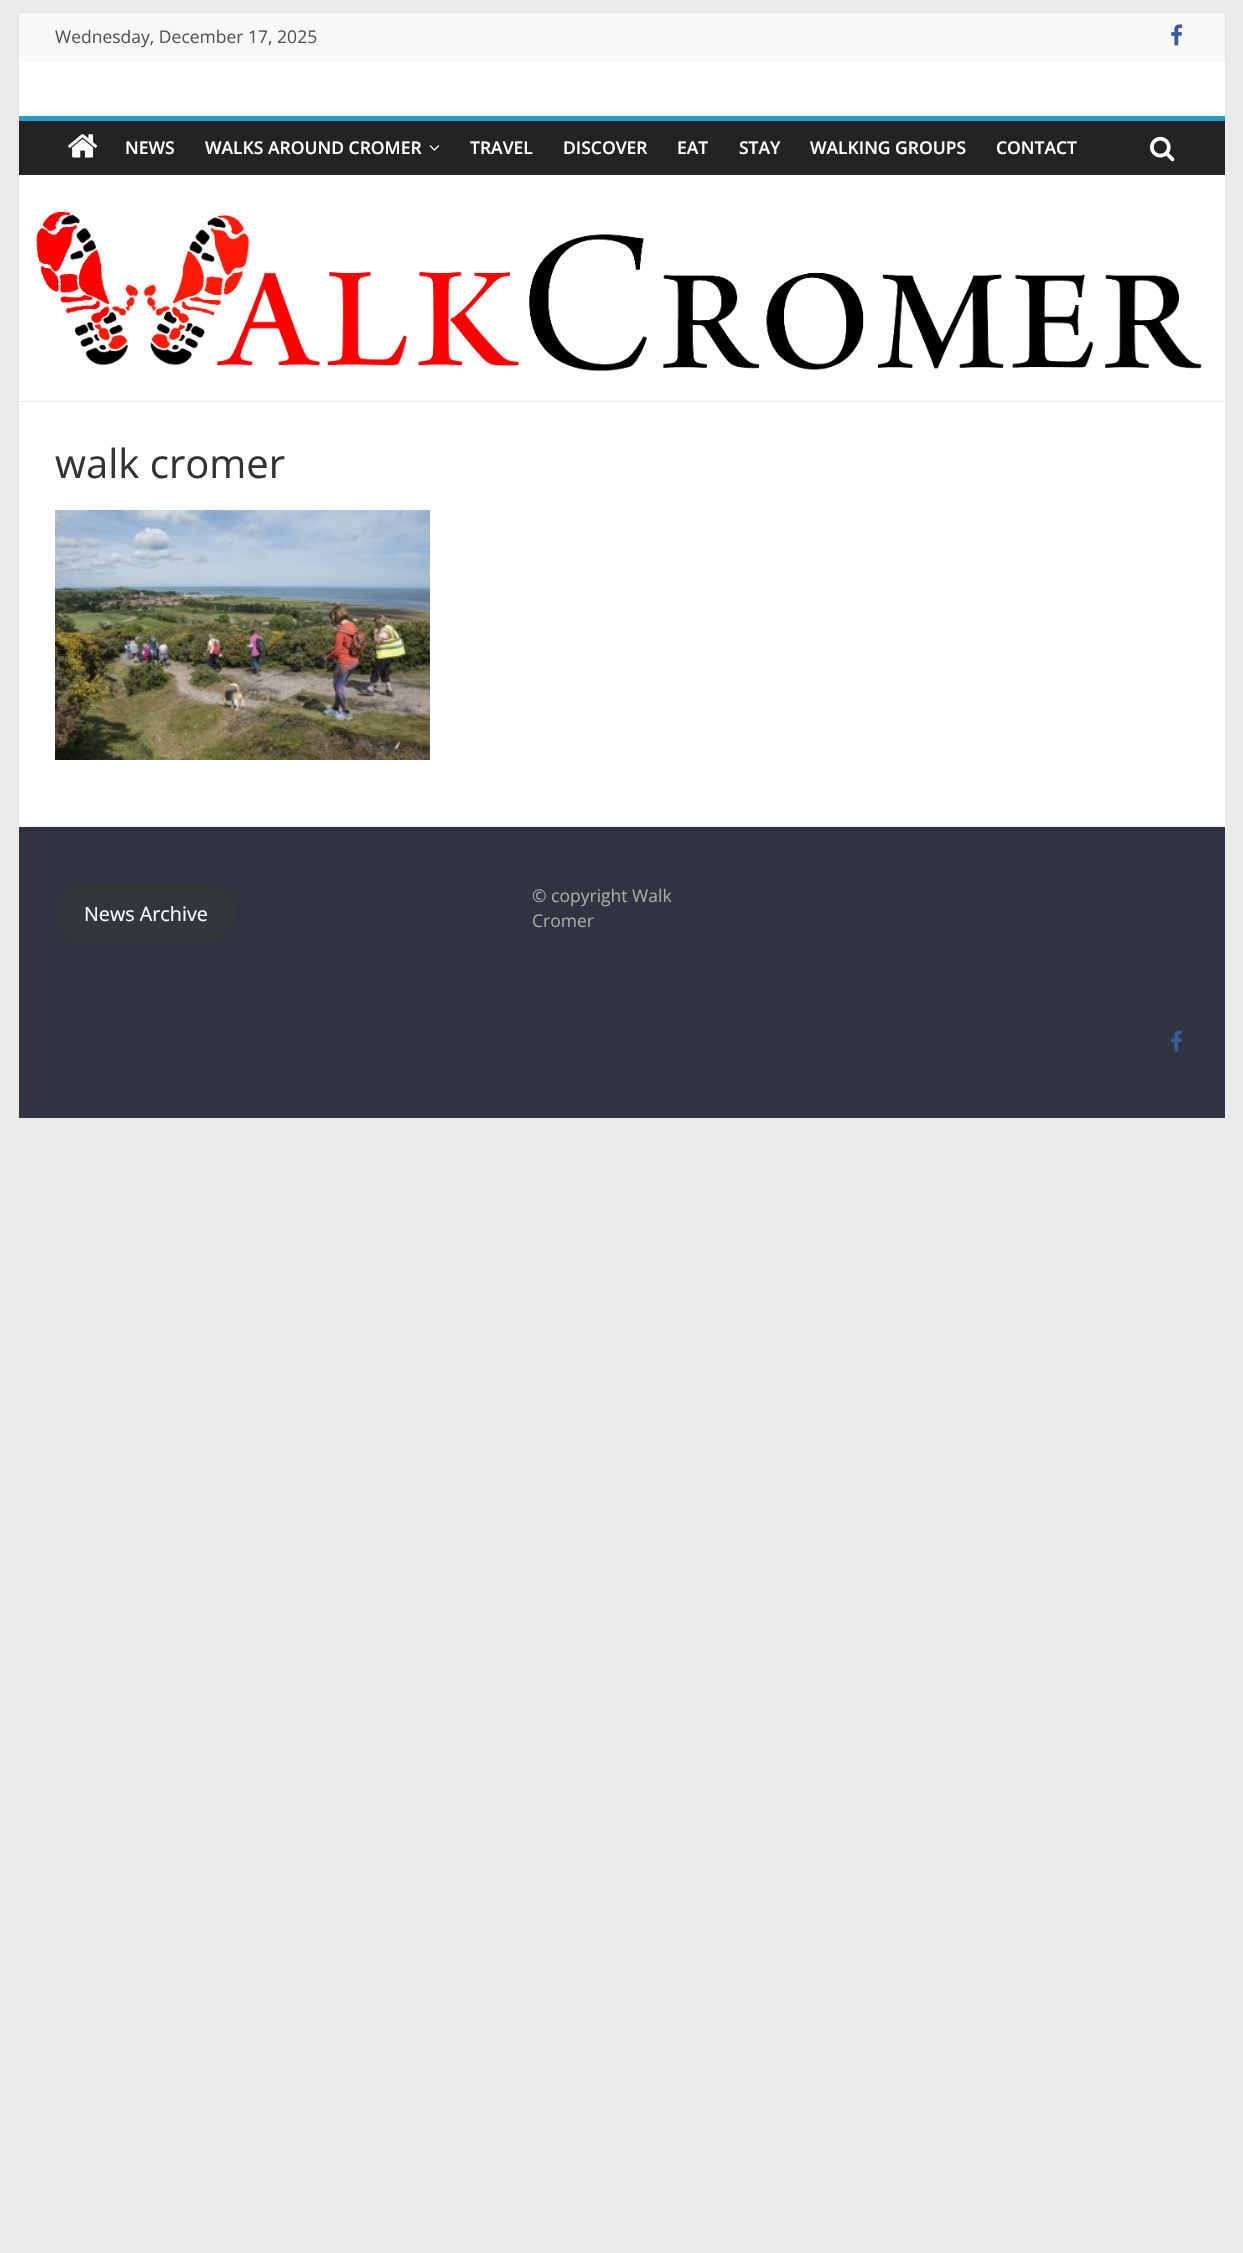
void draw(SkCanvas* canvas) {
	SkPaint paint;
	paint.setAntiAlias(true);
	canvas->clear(0xffeaeaea);
	paint.setColor(0xffffffff);
	canvas->drawRect(SkRect::MakeXYWH(19, 60, 1206, 766), paint);
	paint.setColor(0x1a000000);
	paint.setMaskFilter(SkMaskFilter::MakeBlur(kNormal_SkBlurStyle, 1));
	canvas->drawRect(SkRect::MakeXYWH(19, 13, 1206, 47), paint);
	paint.setMaskFilter(nullptr);
	paint.setColor(0xfff8f8f8);
	canvas->drawRect(SkRect::MakeXYWH(19, 13, 1206, 47), paint);
	SkFont f1(fontMgr->matchFamilyStyle("Open Sans", SkFontStyle::Normal()), 17.5);
	f1.setSubpixel(true);
	paint.setColor(0xff555555);
	canvas->drawString("Wednesday, December 17, 2025", 55, 43, f1, paint);
	canvas->drawImageRect(SkImages::DeferredFromEncodedData(SkData::MakeFromFileName("img1.png")), SkRect::MakeXYWH(1171, 24, 12, 22), SkSamplingOptions());
	paint.setColor(0xff232323);
	canvas->drawRect(SkRect::MakeXYWH(19, 121, 1206, 54), paint);
	paint.setColor(0xff289dcc);
	canvas->drawRect(SkRect::MakeXYWH(19, 116, 1206, 5), paint);
	canvas->drawImageRect(SkImages::DeferredFromEncodedData(SkData::MakeFromFileName("img2.png")), SkRect::MakeXYWH(68, 134, 30, 24), SkSamplingOptions());
	SkFont f2(fontMgr->matchFamilyStyle("Open Sans", SkFontStyle(600, SkFontStyle::kNormal_Width, SkFontStyle::kUpright_Slant)), 17.5);
	f2.setSubpixel(true);
	paint.setColor(0xffffffff);
	canvas->drawString("NEWS", 125, 154, f2, paint);
	canvas->drawString("WALKS AROUND CROMER", 205, 154, f2, paint);
	canvas->drawImageRect(SkImages::DeferredFromEncodedData(SkData::MakeFromFileName("img3.png")), SkRect::MakeXYWH(429, 145, 11, 6), SkSamplingOptions());
	canvas->drawString("TRAVEL", 470, 154, f2, paint);
	canvas->drawString("DISCOVER", 563, 154, f2, paint);
	canvas->drawString("EAT", 677, 154, f2, paint);
	canvas->drawString("STAY", 739, 154, f2, paint);
	canvas->drawString("WALKING GROUPS", 810, 154, f2, paint);
	canvas->drawString("CONTACT", 996, 154, f2, paint);
	canvas->drawImageRect(SkImages::DeferredFromEncodedData(SkData::MakeFromFileName("img4.png")), SkRect::MakeXYWH(1150, 136, 25, 26), SkSamplingOptions());
	canvas->drawImageRect(SkImages::DeferredFromEncodedData(SkData::MakeFromFileName("img5.png")), SkRect::MakeXYWH(36, 211, 1166, 160), SkSamplingOptions());
	paint.setColor(0xffeaeaea);
	canvas->drawRect(SkRect::MakeXYWH(19, 401, 1206, 1), paint);
	SkFont f3(fontMgr->matchFamilyStyle("Open Sans", SkFontStyle::Normal()), 40);
	f3.setSubpixel(true);
	paint.setColor(0xff333333);
	canvas->drawString("walk cromer", 55, 478, f3, paint);
	canvas->drawImageRect(SkImages::DeferredFromEncodedData(SkData::MakeFromFileName("img6.png")), SkRect::MakeXYWH(55, 510, 375, 250), SkSamplingOptions());
	paint.setColor(0xff303440);
	canvas->drawRect(SkRect::MakeXYWH(19, 827, 1206, 291), paint);
	paint.setColor(0xfff2f2f2);
	canvas->drawRect(SkRect::MakeXYWH(19, 826, 1206, 1), paint);
	paint.setColor(0xff32373c);
	canvas->drawRoundRect(SkRect::MakeXYWH(55, 884, 181, 59), 29.5, 29.5, paint);
	SkFont f4(fontMgr->matchFamilyStyle("Open Sans", SkFontStyle::Normal()), 19.75);
	f4.setSubpixel(true);
	paint.setColor(0xffffffff);
	canvas->drawString("News Archive", 84, 921, f4, paint);
	paint.setColor(0xffaaaaaa);
	canvas->drawString("© copyright Walk", 532, 902, f1, paint);
	canvas->drawString("Cromer", 532, 927, f1, paint);
	canvas->drawImageRect(SkImages::DeferredFromEncodedData(SkData::MakeFromFileName("img7.png")), SkRect::MakeXYWH(1171, 1030, 11, 22), SkSamplingOptions());
}
